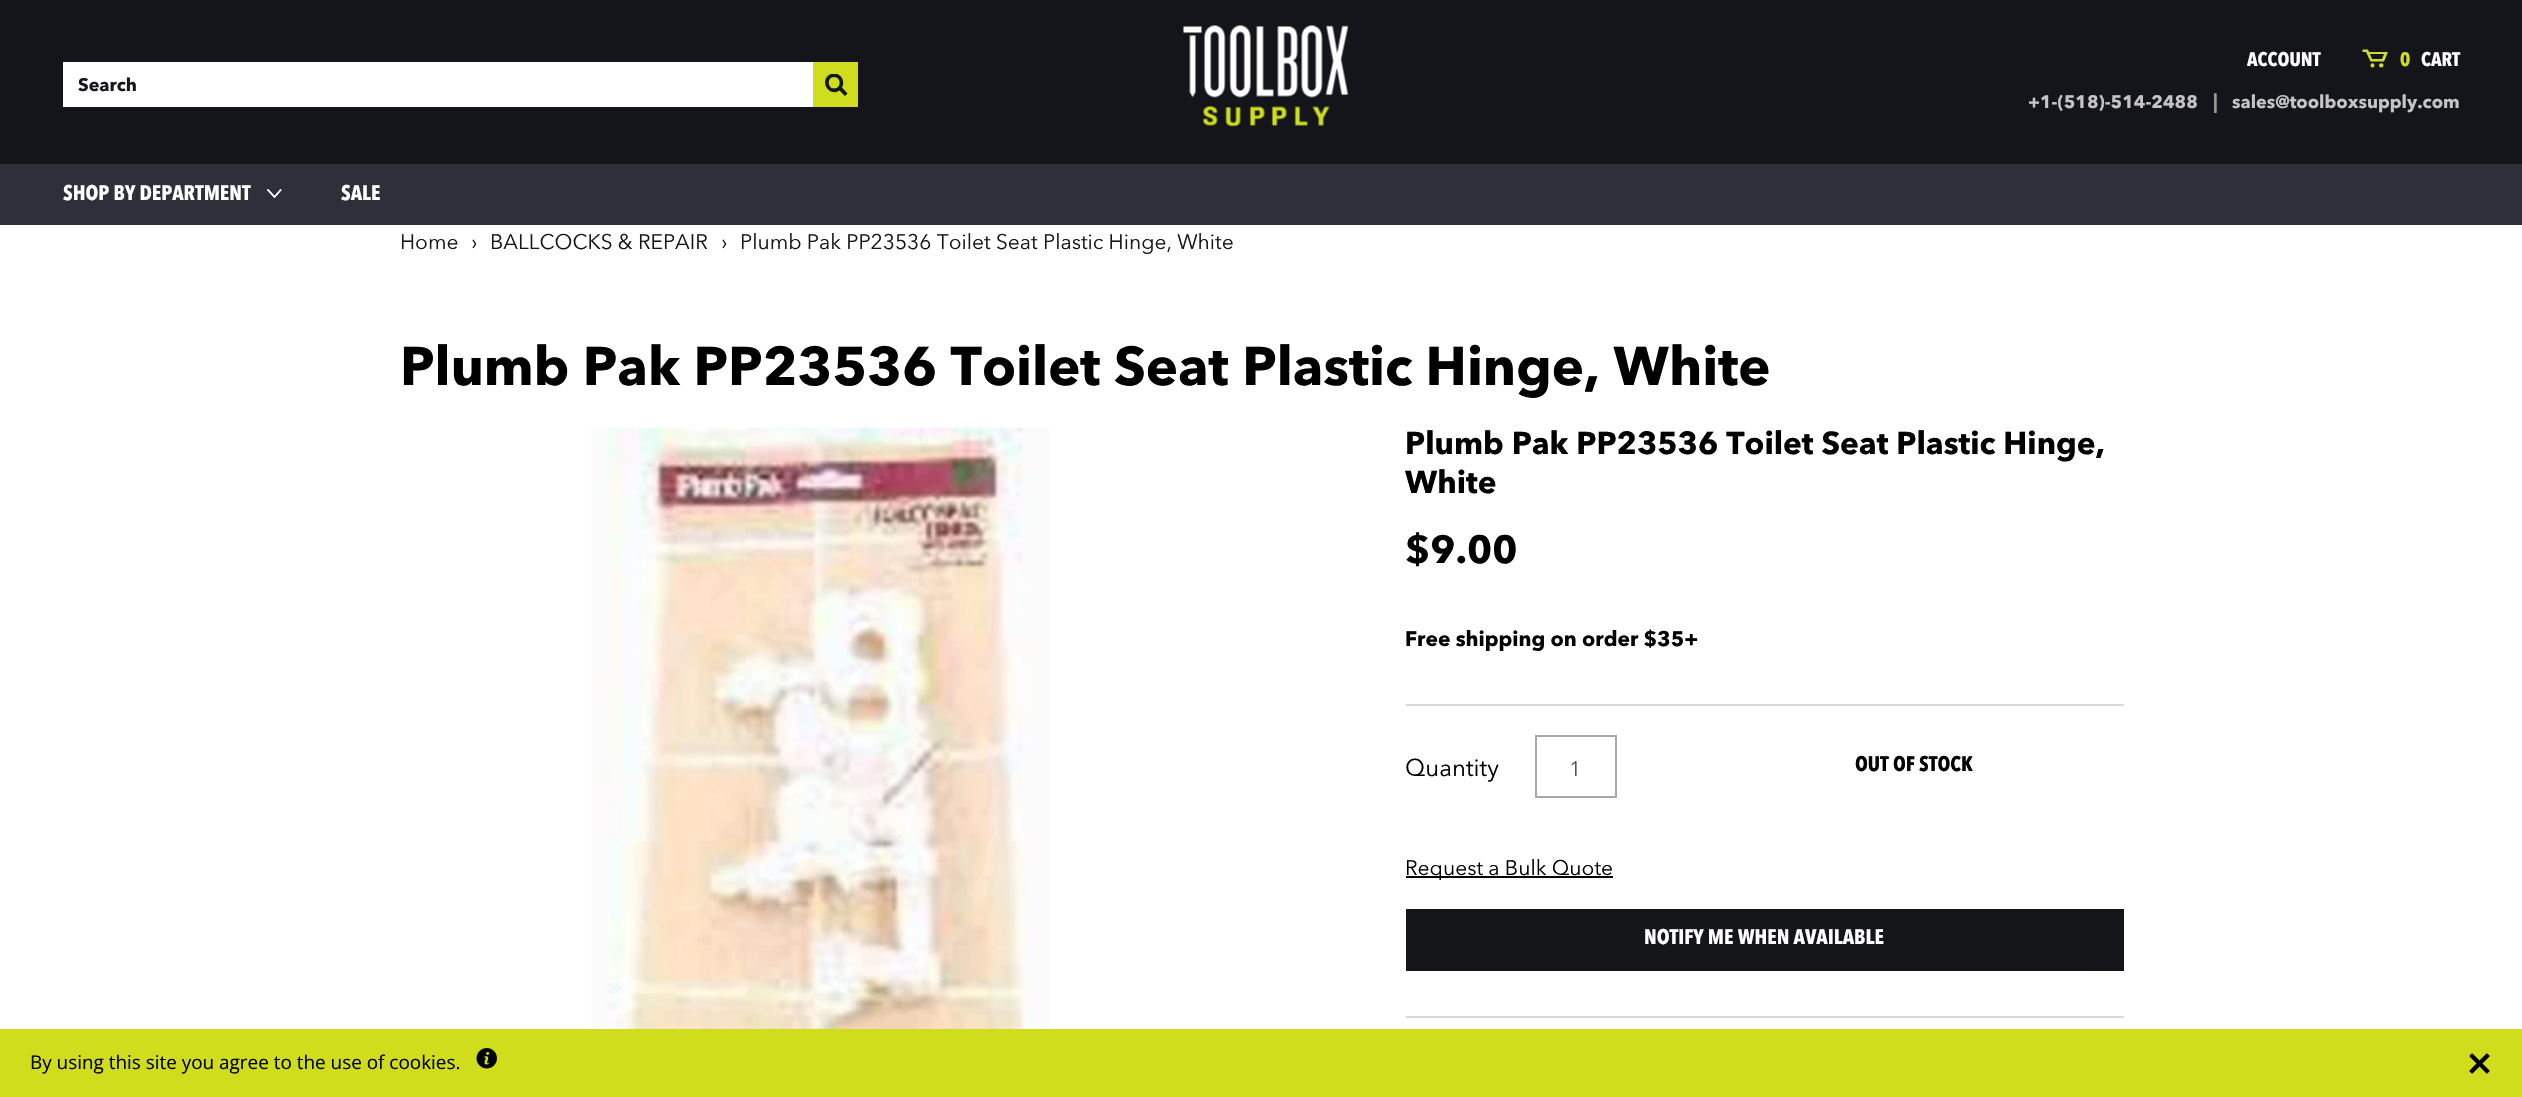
void draw(SkCanvas* canvas) {
	SkPaint paint;
	paint.setAntiAlias(true);
	auto svgPath = [&](const char* data, bool evenOdd = false) {
		SkPath result = *SkParsePath::FromSVGString(data);
		if (evenOdd) result.setFillType(SkPathFillType::kEvenOdd);
		return result;
	};
	canvas->clear(0xffffffff);
	paint.setColor(0xff14151a);
	canvas->drawRect(SkRect::MakeXYWH(0, 0, 2522, 164), paint);
	paint.setColor(0xffffffff);
	canvas->drawRect(SkRect::MakeXYWH(63, 62, 750, 45), paint);
	SkFont f1(fontMgr->matchFamilyStyle("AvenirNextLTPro", SkFontStyle::Normal()), 18);
	f1.setSubpixel(true);
	paint.setColor(0xff15161a);
	canvas->drawString("Search", 78, 91, f1, paint);
	paint.setColor(0xffd0dd1d);
	canvas->drawRect(SkRect::MakeXYWH(813, 62, 45, 45), paint);
	canvas->save();
	canvas->clipRect(SkRect::MakeXYWH(825, 74, 23, 22));
	paint.setColor(0xff15161b);
	canvas->drawPath(svgPath("M847.5 93.5L845 96L839.5 90.5C830 97.5 819 82 829 75C831 73.5 833.5 73 836 73.5C839.5 74.5 842.5 77.5 843 81C843.5 83 843 85.5 842 87.5ZM834 88.5C841.5 88.5 841.5 77 834 77C827 77 827 88.5 834 88.5Z", true), paint);
	canvas->restore();
	canvas->drawImageRect(SkImages::DeferredFromEncodedData(SkData::MakeFromFileName("img1.png")), SkRect::MakeXYWH(1183, 25, 166, 102), SkSamplingOptions());
	SkFont f2(fontMgr->matchFamilyStyle("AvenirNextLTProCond", SkFontStyle::Normal()), 19.5);
	f2.setSubpixel(true);
	paint.setColor(0xffffffff);
	canvas->drawString("ACCOUNT", 2247, 66, f2, paint);
	paint.setColor(0xffcddc29);
	canvas->drawPath(svgPath("M2362.5 49.5H2368L2369 52H2388L2384 61.5H2370.5L2366 52H2362.5ZM2370 54L2372 59H2382L2384 54Z", true), paint);
	paint.setColor(0xffd0dd1d);
	canvas->drawString("0", 2400, 66, f2, paint);
	paint.setColor(0xffffffff);
	canvas->drawString("CART", 2421, 66, f2, paint);
	paint.setColor(0xffcddc29);
	canvas->drawPath(svgPath("M2370.5 65.5C2370.5 68 2374.5 68 2374.5 65.5C2374.5 62.5 2370.5 62.5 2370.5 65.5ZM2379 65.5C2379 68 2383.5 68 2383.5 65.5C2383.5 62.5 2379 62.5 2379 65.5Z"), paint);
	paint.setColor(0xffc4c4c4);
	canvas->drawString("+1-(518)-514-2488", 2028, 108, f1, paint);
	SkFont f3(fontMgr->matchFamilyStyle("AvenirNextLTPro", SkFontStyle::Normal()), 19.5);
	f3.setSubpixel(true);
	paint.setColor(0xff999999);
	canvas->drawString("|", 2213, 108, f3, paint);
	paint.setColor(0xffc4c4c4);
	canvas->drawString("sales@toolboxsupply.com", 2232, 108, f1, paint);
	paint.setColor(0xff2d303b);
	canvas->drawRect(SkRect::MakeXYWH(0, 164, 2522, 61), paint);
	SkFont f4(fontMgr->matchFamilyStyle("AvenirNextLTProCond", SkFontStyle::Normal()), 21);
	f4.setSubpixel(true);
	paint.setColor(0xffffffff);
	canvas->drawString("SHOP BY DEPARTMENT", 63, 200, f4, paint);
	canvas->drawImageRect(SkImages::DeferredFromEncodedData(SkData::MakeFromFileName("img2.png")), SkRect::MakeXYWH(267, 189, 15, 9), SkSamplingOptions());
	canvas->drawString("SALE", 341, 200, f4, paint);
	SkFont f5(fontMgr->matchFamilyStyle("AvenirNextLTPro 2", SkFontStyle::Normal()), 21);
	f5.setSubpixel(true);
	paint.setColor(0xff15161a);
	canvas->drawString("Home", 400, 249, f5, paint);
	canvas->drawString("›", 471, 249, f5, paint);
	canvas->drawString("BALLCOCKS & REPAIR", 490, 249, f5, paint);
	canvas->drawString("›", 721, 249, f5, paint);
	canvas->drawString("Plumb Pak PP23536 Toilet Seat Plastic Hinge, White", 740, 249, f5, paint);
	SkFont f6(fontMgr->matchFamilyStyle("AvenirNextLTPro", SkFontStyle::Normal()), 54);
	f6.setSubpixel(true);
	paint.setColor(0xff000000);
	canvas->drawString("Plumb Pak PP23536 Toilet Seat Plastic Hinge, White", 400, 385, f6, paint);
	canvas->drawImageRect(SkImages::DeferredFromEncodedData(SkData::MakeFromFileName("img3.png")), SkRect::MakeXYWH(591, 427, 459, 602), SkSamplingOptions());
	SkFont f7(fontMgr->matchFamilyStyle("AvenirNextLTPro", SkFontStyle::Normal()), 31.5);
	f7.setSubpixel(true);
	canvas->drawString("Plumb Pak PP23536 Toilet Seat Plastic Hinge,", 1405, 454, f7, paint);
	canvas->drawString("White", 1405, 493, f7, paint);
	SkFont f8(fontMgr->matchFamilyStyle("AvenirNextLTPro", SkFontStyle::Normal()), 39);
	f8.setSubpixel(true);
	canvas->drawString("$9.00", 1405, 563, f8, paint);
	SkFont f9(fontMgr->matchFamilyStyle("AvenirNextLTPro", SkFontStyle::Normal()), 21);
	f9.setSubpixel(true);
	canvas->drawString("Free shipping on order $35+", 1405, 646, f9, paint);
	paint.setColor(0xffd9d9d9);
	canvas->drawRect(SkRect::MakeXYWH(1406, 704, 718, 2), paint);
	SkFont f10(fontMgr->matchFamilyStyle("AvenirNextLTPro 2", SkFontStyle::Normal()), 24);
	f10.setSubpixel(true);
	paint.setColor(0xff000000);
	canvas->drawString("Quantity", 1405, 776, f10, paint);
	paint.setStroke(true);
	paint.setStrokeWidth(2);
	paint.setColor(0xffa7a7a7);
	canvas->drawRect(SkRect::MakeXYWH(1536, 736, 80, 61), paint);
	paint.setStroke(false);
	paint.setColor(0xff555555);
	canvas->drawString("1", 1569, 776, f5, paint);
	paint.setColor(0xff000000);
	canvas->drawRect(SkRect::MakeXYWH(1406, 876, 207, 2), paint);
	canvas->drawString("Request a Bulk Quote", 1405, 875, f5, paint);
	canvas->drawString("OUT OF STOCK", 1855, 771, f4, paint);
	paint.setColor(0xff15161a);
	canvas->drawRect(SkRect::MakeXYWH(1406, 909, 718, 62), paint);
	paint.setColor(0xffffffff);
	canvas->drawString("NOTIFY ME WHEN AVAILABLE", 1644, 944, f4, paint);
	paint.setColor(0xffd9d9d9);
	canvas->drawRect(SkRect::MakeXYWH(1406, 1016, 718, 2), paint);
	paint.setColor(0xffd0dd1d);
	canvas->drawRect(SkRect::MakeXYWH(0, 1029, 2522, 68), paint);
	SkFont f11(fontMgr->matchFamilyStyle("Open Sans", SkFontStyle::Normal()), 18.9);
	f11.setSubpixel(true);
	paint.setColor(0xff000000);
	canvas->drawString("By using this site you agree to the use of cookies.", 30, 1069, f11, paint);
	canvas->drawImageRect(SkImages::DeferredFromEncodedData(SkData::MakeFromFileName("img4.png")), SkRect::MakeXYWH(476, 1048, 21, 21), SkSamplingOptions());
	canvas->drawImageRect(SkImages::DeferredFromEncodedData(SkData::MakeFromFileName("img5.png")), SkRect::MakeXYWH(2469, 1053, 21, 21), SkSamplingOptions());
}
